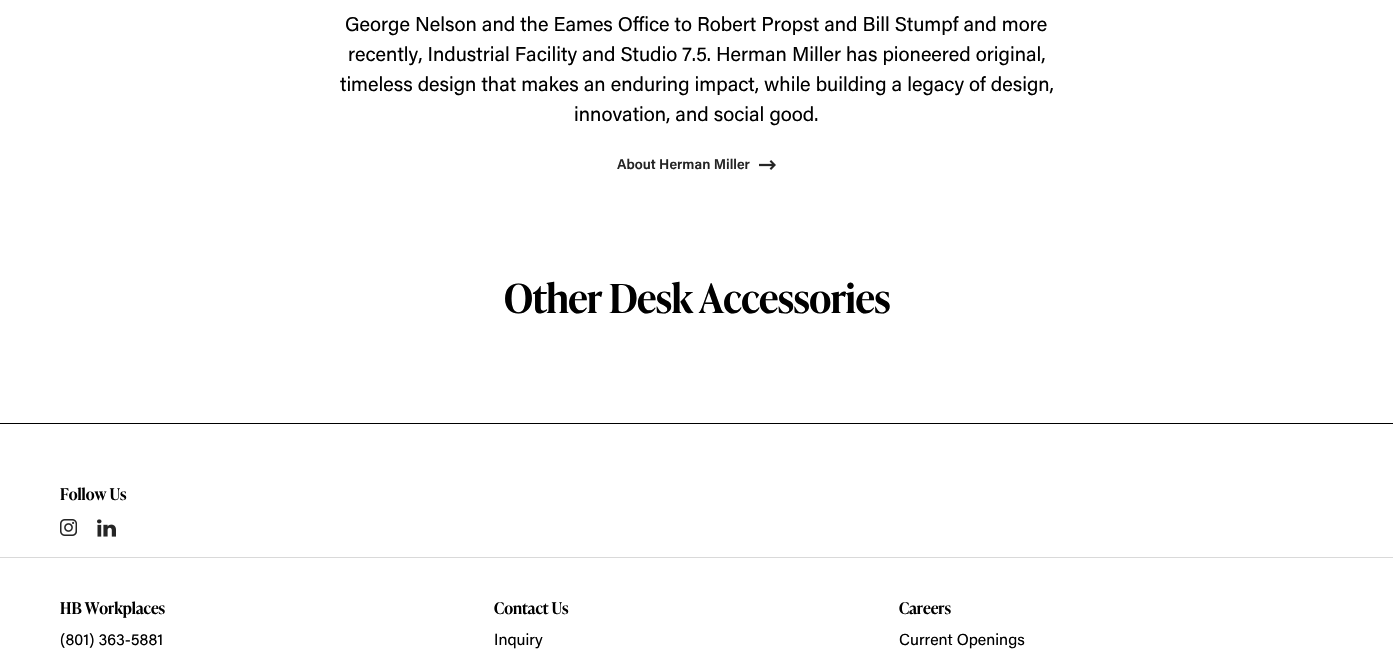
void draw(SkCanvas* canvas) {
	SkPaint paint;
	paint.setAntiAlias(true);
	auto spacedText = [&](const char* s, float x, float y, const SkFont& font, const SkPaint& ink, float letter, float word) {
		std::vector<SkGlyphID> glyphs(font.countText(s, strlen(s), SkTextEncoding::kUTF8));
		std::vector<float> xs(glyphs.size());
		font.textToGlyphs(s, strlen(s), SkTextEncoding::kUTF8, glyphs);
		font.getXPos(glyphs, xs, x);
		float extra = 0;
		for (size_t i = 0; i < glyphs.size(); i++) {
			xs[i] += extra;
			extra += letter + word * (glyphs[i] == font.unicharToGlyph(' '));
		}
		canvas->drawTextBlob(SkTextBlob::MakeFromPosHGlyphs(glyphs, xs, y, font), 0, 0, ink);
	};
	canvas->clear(0xffffffff);
	SkFont f1(fontMgr->matchFamilyStyle("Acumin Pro", SkFontStyle::Normal()), 20);
	f1.setSubpixel(true);
	paint.setColor(0xff000000);
	canvas->drawString("George Nelson and the Eames Office to Robert Propst and Bill Stumpf and more", 345, 31, f1, paint);
	canvas->drawString("recently, Industrial Facility and Studio 7.5. Herman Miller has pioneered original,", 348, 61, f1, paint);
	canvas->drawString("timeless design that makes an enduring impact, while building a legacy of design,", 340, 91, f1, paint);
	canvas->drawString("innovation, and social good.", 574, 121, f1, paint);
	SkFont f2(fontMgr->matchFamilyStyle("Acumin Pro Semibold", SkFontStyle(600, SkFontStyle::kNormal_Width, SkFontStyle::kUpright_Slant)), 14);
	f2.setSubpixel(true);
	paint.setColor(0xff252525);
	canvas->drawString("About Herman Miller", 617, 169, f2, paint);
	canvas->drawImageRect(SkImages::DeferredFromEncodedData(SkData::MakeFromFileName("img1.png")), SkRect::MakeXYWH(759, 160, 17, 10), SkSamplingOptions());
	SkFont f3(fontMgr->matchFamilyStyle("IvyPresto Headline", SkFontStyle(600, SkFontStyle::kNormal_Width, SkFontStyle::kUpright_Slant)), 40);
	f3.setSubpixel(true);
	paint.setColor(0xff000000);
	spacedText("Other Desk Accessories", 504, 313, f3, paint, -0.5, 0);
	canvas->drawRect(SkRect::MakeXYWH(0, 423, 1393, 1), paint);
	paint.setColor(0xffd9d9d9);
	canvas->drawRect(SkRect::MakeXYWH(0, 557, 1393, 1), paint);
	SkFont f4(fontMgr->matchFamilyStyle("IvyPresto Headline", SkFontStyle(600, SkFontStyle::kNormal_Width, SkFontStyle::kUpright_Slant)), 16);
	f4.setSubpixel(true);
	paint.setColor(0xff000000);
	canvas->drawString("Follow Us", 60, 500, f4, paint);
	canvas->drawImageRect(SkImages::DeferredFromEncodedData(SkData::MakeFromFileName("img2.png")), SkRect::MakeXYWH(60, 519, 17, 17), SkSamplingOptions());
	canvas->drawImageRect(SkImages::DeferredFromEncodedData(SkData::MakeFromFileName("img3.png")), SkRect::MakeXYWH(97, 519, 19, 18), SkSamplingOptions());
	canvas->drawString("HB Workplaces", 60, 614, f4, paint);
	SkFont f5(fontMgr->matchFamilyStyle("Acumin Pro", SkFontStyle::Normal()), 16);
	f5.setSubpixel(true);
	canvas->drawString("(801) 363-5881", 60, 645, f5, paint);
	canvas->drawString("Contact Us", 494, 614, f4, paint);
	canvas->drawString("Inquiry", 494, 645, f5, paint);
	canvas->drawString("Careers", 899, 614, f4, paint);
	canvas->drawString("Current Openings", 899, 645, f5, paint);
}
